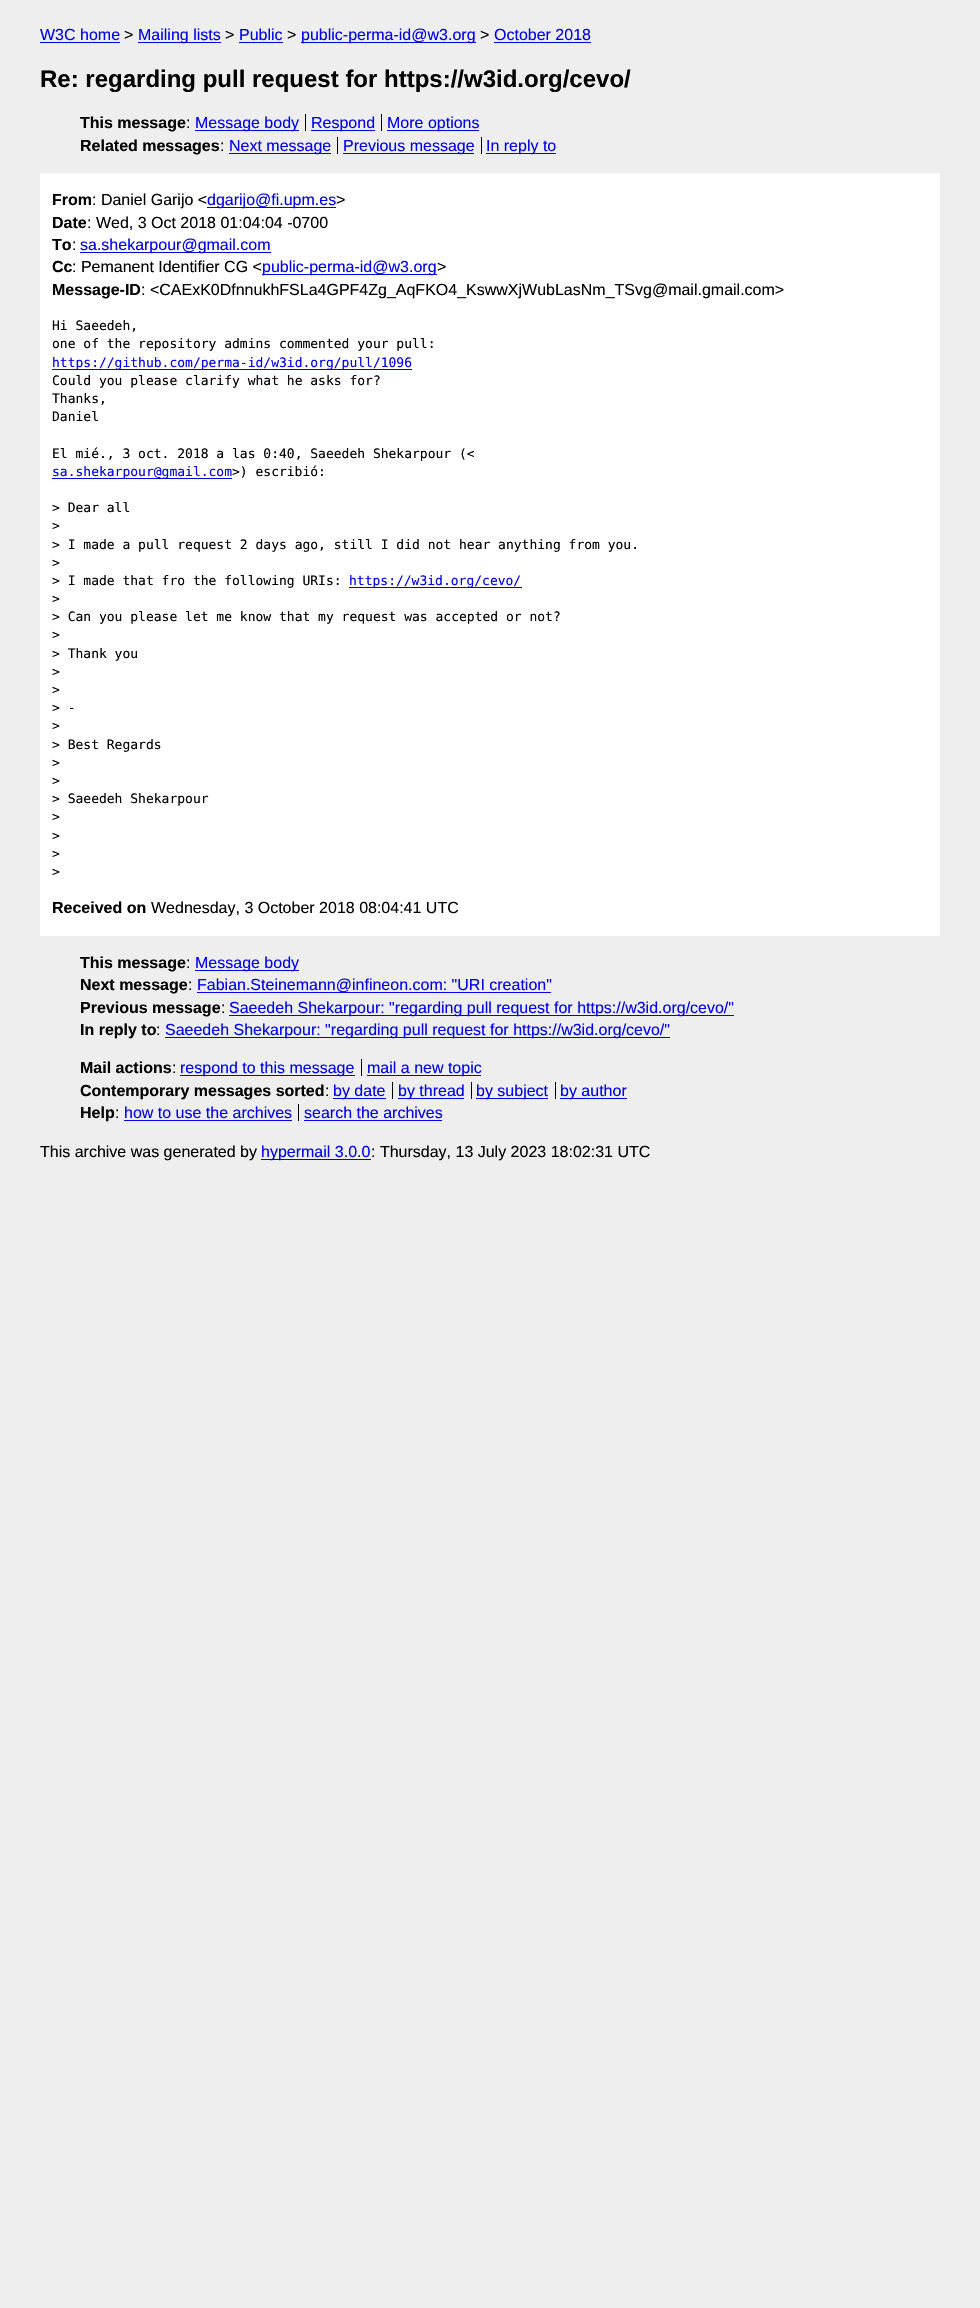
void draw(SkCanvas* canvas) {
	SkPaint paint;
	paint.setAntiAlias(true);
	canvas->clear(0xffeeeeee);
	SkFont f1(fontMgr->matchFamilyStyle("Liberation Sans", SkFontStyle::Normal()), 16);
	f1.setSubpixel(true);
	paint.setColor(0xff0000ee);
	canvas->drawString("W3C home", 40, 40, f1, paint);
	canvas->drawRect(SkRect::MakeXYWH(40, 42, 80, 1), paint);
	paint.setColor(0xff000000);
	canvas->drawString(">", 124, 40, f1, paint);
	paint.setColor(0xff0000ee);
	canvas->drawRect(SkRect::MakeXYWH(138, 42, 83, 1), paint);
	canvas->drawString("Mailing lists", 138, 40, f1, paint);
	paint.setColor(0xff000000);
	canvas->drawString(">", 225, 40, f1, paint);
	paint.setColor(0xff0000ee);
	canvas->drawString("Public", 239, 40, f1, paint);
	canvas->drawRect(SkRect::MakeXYWH(239, 42, 44, 1), paint);
	paint.setColor(0xff000000);
	canvas->drawString(">", 287, 40, f1, paint);
	paint.setColor(0xff0000ee);
	canvas->drawRect(SkRect::MakeXYWH(301, 42, 175, 1), paint);
	canvas->drawString("public-perma-id@w3.org", 301, 40, f1, paint);
	paint.setColor(0xff000000);
	canvas->drawString(">", 480, 40, f1, paint);
	paint.setColor(0xff0000ee);
	canvas->drawString("October 2018", 494, 40, f1, paint);
	canvas->drawRect(SkRect::MakeXYWH(494, 42, 97, 1), paint);
	SkFont f2(fontMgr->matchFamilyStyle("Liberation Sans", SkFontStyle::Bold()), 24);
	f2.setSubpixel(true);
	paint.setColor(0xff000000);
	canvas->drawString("Re: regarding pull request for https://w3id.org/cevo/", 40, 87, f2, paint);
	SkFont f3(fontMgr->matchFamilyStyle("Liberation Sans", SkFontStyle::Bold()), 16);
	f3.setSubpixel(true);
	canvas->drawString("This message", 80, 128, f3, paint);
	canvas->drawString(":", 186, 128, f1, paint);
	paint.setColor(0xff0000ee);
	canvas->drawRect(SkRect::MakeXYWH(195, 130, 104, 1), paint);
	canvas->drawString("Message body", 195, 128, f1, paint);
	canvas->drawRect(SkRect::MakeXYWH(311, 130, 64, 1), paint);
	canvas->drawString("Respond", 311, 128, f1, paint);
	paint.setColor(0xff000000);
	canvas->drawRect(SkRect::MakeXYWH(305, 114, 1, 17), paint);
	paint.setColor(0xff0000ee);
	canvas->drawRect(SkRect::MakeXYWH(387, 130, 92, 1), paint);
	canvas->drawString("More options", 387, 128, f1, paint);
	paint.setColor(0xff000000);
	canvas->drawRect(SkRect::MakeXYWH(381, 114, 1, 17), paint);
	canvas->drawString("Related messages", 80, 151, f3, paint);
	canvas->drawString(":", 220, 151, f1, paint);
	paint.setColor(0xff0000ee);
	canvas->drawRect(SkRect::MakeXYWH(229, 153, 102, 1), paint);
	canvas->drawString("Next message", 229, 151, f1, paint);
	canvas->drawRect(SkRect::MakeXYWH(343, 153, 131, 1), paint);
	canvas->drawString("Previous message", 343, 151, f1, paint);
	paint.setColor(0xff000000);
	canvas->drawRect(SkRect::MakeXYWH(337, 137, 1, 17), paint);
	paint.setColor(0xff0000ee);
	canvas->drawRect(SkRect::MakeXYWH(486, 153, 70, 1), paint);
	canvas->drawString("In reply to", 486, 151, f1, paint);
	paint.setColor(0xff000000);
	canvas->drawRect(SkRect::MakeXYWH(481, 137, 1, 17), paint);
	paint.setColor(0xffffffff);
	canvas->drawRect(SkRect::MakeXYWH(40, 173, 900, 763), paint);
	paint.setColor(0xff000000);
	canvas->drawString("From", 52, 205, f3, paint);
	canvas->drawString(": Daniel Garijo <", 92, 205, f1, paint);
	paint.setColor(0xff0000ee);
	canvas->drawRect(SkRect::MakeXYWH(207, 207, 129, 1), paint);
	canvas->drawString("dgarijo@fi.upm.es", 207, 205, f1, paint);
	paint.setColor(0xff000000);
	canvas->drawString(">", 336, 205, f1, paint);
	canvas->drawString("Date", 52, 228, f3, paint);
	canvas->drawString(": Wed, 3 Oct 2018 01:04:04 -0700", 87, 228, f1, paint);
	canvas->drawString("To", 52, 250, f3, paint);
	canvas->drawString(":", 72, 250, f1, paint);
	paint.setColor(0xff0000ee);
	canvas->drawRect(SkRect::MakeXYWH(80, 252, 191, 1), paint);
	canvas->drawString("sa.shekarpour@gmail.com", 80, 250, f1, paint);
	paint.setColor(0xff000000);
	canvas->drawString("Cc", 52, 272, f3, paint);
	canvas->drawString(": Pemanent Identifier CG <", 72, 272, f1, paint);
	paint.setColor(0xff0000ee);
	canvas->drawRect(SkRect::MakeXYWH(262, 274, 175, 1), paint);
	canvas->drawString("public-perma-id@w3.org", 262, 272, f1, paint);
	paint.setColor(0xff000000);
	canvas->drawString(">", 437, 272, f1, paint);
	canvas->drawString("Message-ID", 52, 295, f3, paint);
	canvas->drawString(": <CAExK0DfnnukhFSLa4GPF4Zg_AqFKO4_KswwXjWubLasNm_TSvg@mail.gmail.com>", 141, 295, f1, paint);
	SkFont f4(fontMgr->matchFamilyStyle("DejaVu Sans Mono", SkFontStyle::Normal()), 13);
	f4.setSubpixel(true);
	canvas->drawString("Hi Saeedeh,", 52, 330, f4, paint);
	canvas->drawString("one of the repository admins commented your pull:", 52, 348, f4, paint);
	paint.setColor(0xff0000ee);
	canvas->drawRect(SkRect::MakeXYWH(52, 369, 360, 1), paint);
	canvas->drawString("https://github.com/perma-id/w3id.org/pull/1096", 52, 367, f4, paint);
	paint.setColor(0xff000000);
	canvas->drawString("Could you please clarify what he asks for?", 52, 385, f4, paint);
	canvas->drawString("Thanks,", 52, 403, f4, paint);
	canvas->drawString("Daniel", 52, 421, f4, paint);
	canvas->drawString("El mié., 3 oct. 2018 a las 0:40, Saeedeh Shekarpour (<", 52, 458, f4, paint);
	paint.setColor(0xff0000ee);
	canvas->drawRect(SkRect::MakeXYWH(52, 478, 180, 1), paint);
	canvas->drawString("sa.shekarpour@gmail.com", 52, 476, f4, paint);
	paint.setColor(0xff000000);
	canvas->drawString(">) escribió:", 232, 476, f4, paint);
	canvas->drawString("> Dear all", 52, 512, f4, paint);
	canvas->drawString(">", 52, 530, f4, paint);
	canvas->drawString("> I made a pull request 2 days ago, still I did not hear anything from you.", 52, 549, f4, paint);
	canvas->drawString(">", 52, 567, f4, paint);
	canvas->drawString("> I made that fro the following URIs:", 52, 585, f4, paint);
	paint.setColor(0xff0000ee);
	canvas->drawRect(SkRect::MakeXYWH(349, 587, 173, 1), paint);
	canvas->drawString("https://w3id.org/cevo/", 349, 585, f4, paint);
	paint.setColor(0xff000000);
	canvas->drawString(">", 52, 603, f4, paint);
	canvas->drawString("> Can you please let me know that my request was accepted or not?", 52, 621, f4, paint);
	canvas->drawString(">", 52, 639, f4, paint);
	canvas->drawString("> Thank you", 52, 658, f4, paint);
	canvas->drawString(">", 52, 676, f4, paint);
	canvas->drawString(">", 52, 694, f4, paint);
	canvas->drawString("> -", 52, 712, f4, paint);
	canvas->drawString(">", 52, 730, f4, paint);
	canvas->drawString("> Best Regards", 52, 749, f4, paint);
	canvas->drawString(">", 52, 767, f4, paint);
	canvas->drawString(">", 52, 785, f4, paint);
	canvas->drawString("> Saeedeh Shekarpour", 52, 803, f4, paint);
	canvas->drawString(">", 52, 821, f4, paint);
	canvas->drawString(">", 52, 840, f4, paint);
	canvas->drawString(">", 52, 858, f4, paint);
	canvas->drawString(">", 52, 876, f4, paint);
	canvas->drawString("Received on", 52, 913, f3, paint);
	canvas->drawString("Wednesday, 3 October 2018 08:04:41 UTC", 151, 913, f1, paint);
	canvas->drawString("This message", 80, 968, f3, paint);
	canvas->drawString(":", 186, 968, f1, paint);
	paint.setColor(0xff0000ee);
	canvas->drawRect(SkRect::MakeXYWH(195, 970, 104, 1), paint);
	canvas->drawString("Message body", 195, 968, f1, paint);
	paint.setColor(0xff000000);
	canvas->drawString("Next message", 80, 990, f3, paint);
	canvas->drawString(":", 188, 990, f1, paint);
	paint.setColor(0xff0000ee);
	canvas->drawRect(SkRect::MakeXYWH(197, 992, 354, 1), paint);
	canvas->drawString("Fabian.Steinemann@infineon.com: \"URI creation\"", 197, 990, f1, paint);
	paint.setColor(0xff000000);
	canvas->drawString("Previous message", 80, 1013, f3, paint);
	canvas->drawString(":", 221, 1013, f1, paint);
	paint.setColor(0xff0000ee);
	canvas->drawRect(SkRect::MakeXYWH(229, 1015, 505, 1), paint);
	canvas->drawString("Saeedeh Shekarpour: \"regarding pull request for https://w3id.org/cevo/\"", 229, 1013, f1, paint);
	paint.setColor(0xff000000);
	canvas->drawString("In reply to", 80, 1035, f3, paint);
	canvas->drawString(":", 156, 1035, f1, paint);
	paint.setColor(0xff0000ee);
	canvas->drawRect(SkRect::MakeXYWH(165, 1037, 505, 1), paint);
	canvas->drawString("Saeedeh Shekarpour: \"regarding pull request for https://w3id.org/cevo/\"", 165, 1035, f1, paint);
	paint.setColor(0xff000000);
	canvas->drawString("Mail actions", 80, 1073, f3, paint);
	canvas->drawString(":", 172, 1073, f1, paint);
	paint.setColor(0xff0000ee);
	canvas->drawRect(SkRect::MakeXYWH(180, 1075, 175, 1), paint);
	canvas->drawString("respond to this message", 180, 1073, f1, paint);
	canvas->drawRect(SkRect::MakeXYWH(367, 1075, 114, 1), paint);
	canvas->drawString("mail a new topic", 367, 1073, f1, paint);
	paint.setColor(0xff000000);
	canvas->drawRect(SkRect::MakeXYWH(361, 1059, 1, 17), paint);
	canvas->drawString("Contemporary messages sorted", 80, 1096, f3, paint);
	canvas->drawString(":", 325, 1096, f1, paint);
	paint.setColor(0xff0000ee);
	canvas->drawRect(SkRect::MakeXYWH(333, 1098, 53, 1), paint);
	canvas->drawString("by date", 333, 1096, f1, paint);
	canvas->drawRect(SkRect::MakeXYWH(398, 1098, 66, 1), paint);
	canvas->drawString("by thread", 398, 1096, f1, paint);
	paint.setColor(0xff000000);
	canvas->drawRect(SkRect::MakeXYWH(392, 1082, 1, 17), paint);
	paint.setColor(0xff0000ee);
	canvas->drawRect(SkRect::MakeXYWH(476, 1098, 72, 1), paint);
	canvas->drawString("by subject", 476, 1096, f1, paint);
	paint.setColor(0xff000000);
	canvas->drawRect(SkRect::MakeXYWH(471, 1082, 1, 17), paint);
	paint.setColor(0xff0000ee);
	canvas->drawRect(SkRect::MakeXYWH(560, 1098, 67, 1), paint);
	canvas->drawString("by author", 560, 1096, f1, paint);
	paint.setColor(0xff000000);
	canvas->drawRect(SkRect::MakeXYWH(555, 1082, 1, 17), paint);
	canvas->drawString("Help", 80, 1118, f3, paint);
	canvas->drawString(":", 115, 1118, f1, paint);
	paint.setColor(0xff0000ee);
	canvas->drawString("how to use the archives", 124, 1118, f1, paint);
	canvas->drawRect(SkRect::MakeXYWH(124, 1120, 168, 1), paint);
	canvas->drawString("search the archives", 304, 1118, f1, paint);
	paint.setColor(0xff000000);
	canvas->drawRect(SkRect::MakeXYWH(298, 1104, 1, 17), paint);
	paint.setColor(0xff0000ee);
	canvas->drawRect(SkRect::MakeXYWH(304, 1120, 138, 1), paint);
	paint.setColor(0xff000000);
	canvas->drawString("This archive was generated by", 40, 1157, f1, paint);
	paint.setColor(0xff0000ee);
	canvas->drawRect(SkRect::MakeXYWH(261, 1159, 110, 1), paint);
	canvas->drawString("hypermail 3.0.0", 261, 1157, f1, paint);
	paint.setColor(0xff000000);
	canvas->drawString(": Thursday, 13 July 2023 18:02:31 UTC", 371, 1157, f1, paint);
}
